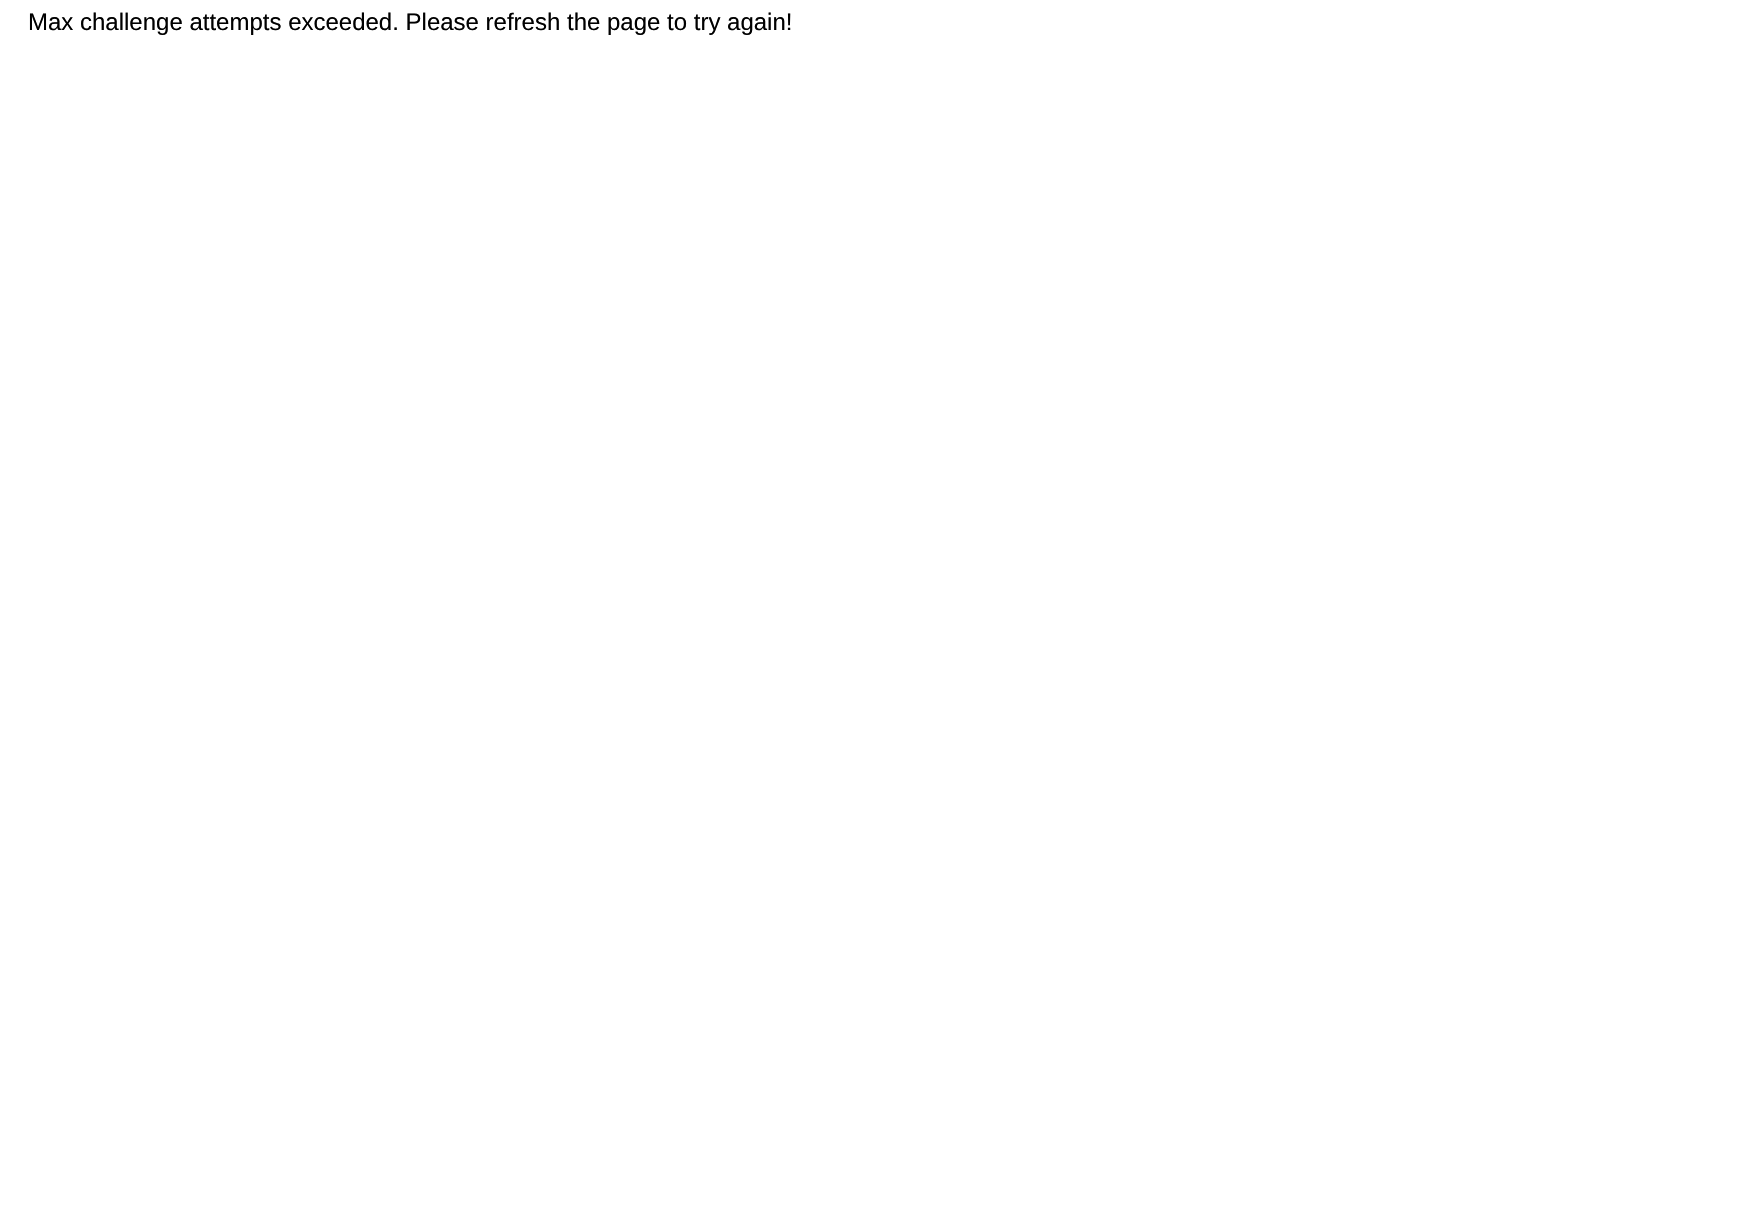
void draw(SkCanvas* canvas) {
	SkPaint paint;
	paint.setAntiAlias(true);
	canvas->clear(0xffffffff);
	SkFont f1(fontMgr->matchFamilyStyle("Liberation Sans", SkFontStyle::Normal()), 24);
	f1.setSubpixel(true);
	paint.setColor(0xff000000);
	canvas->drawString("Max challenge attempts exceeded. Please refresh the page to try again!", 28, 30, f1, paint);
}
